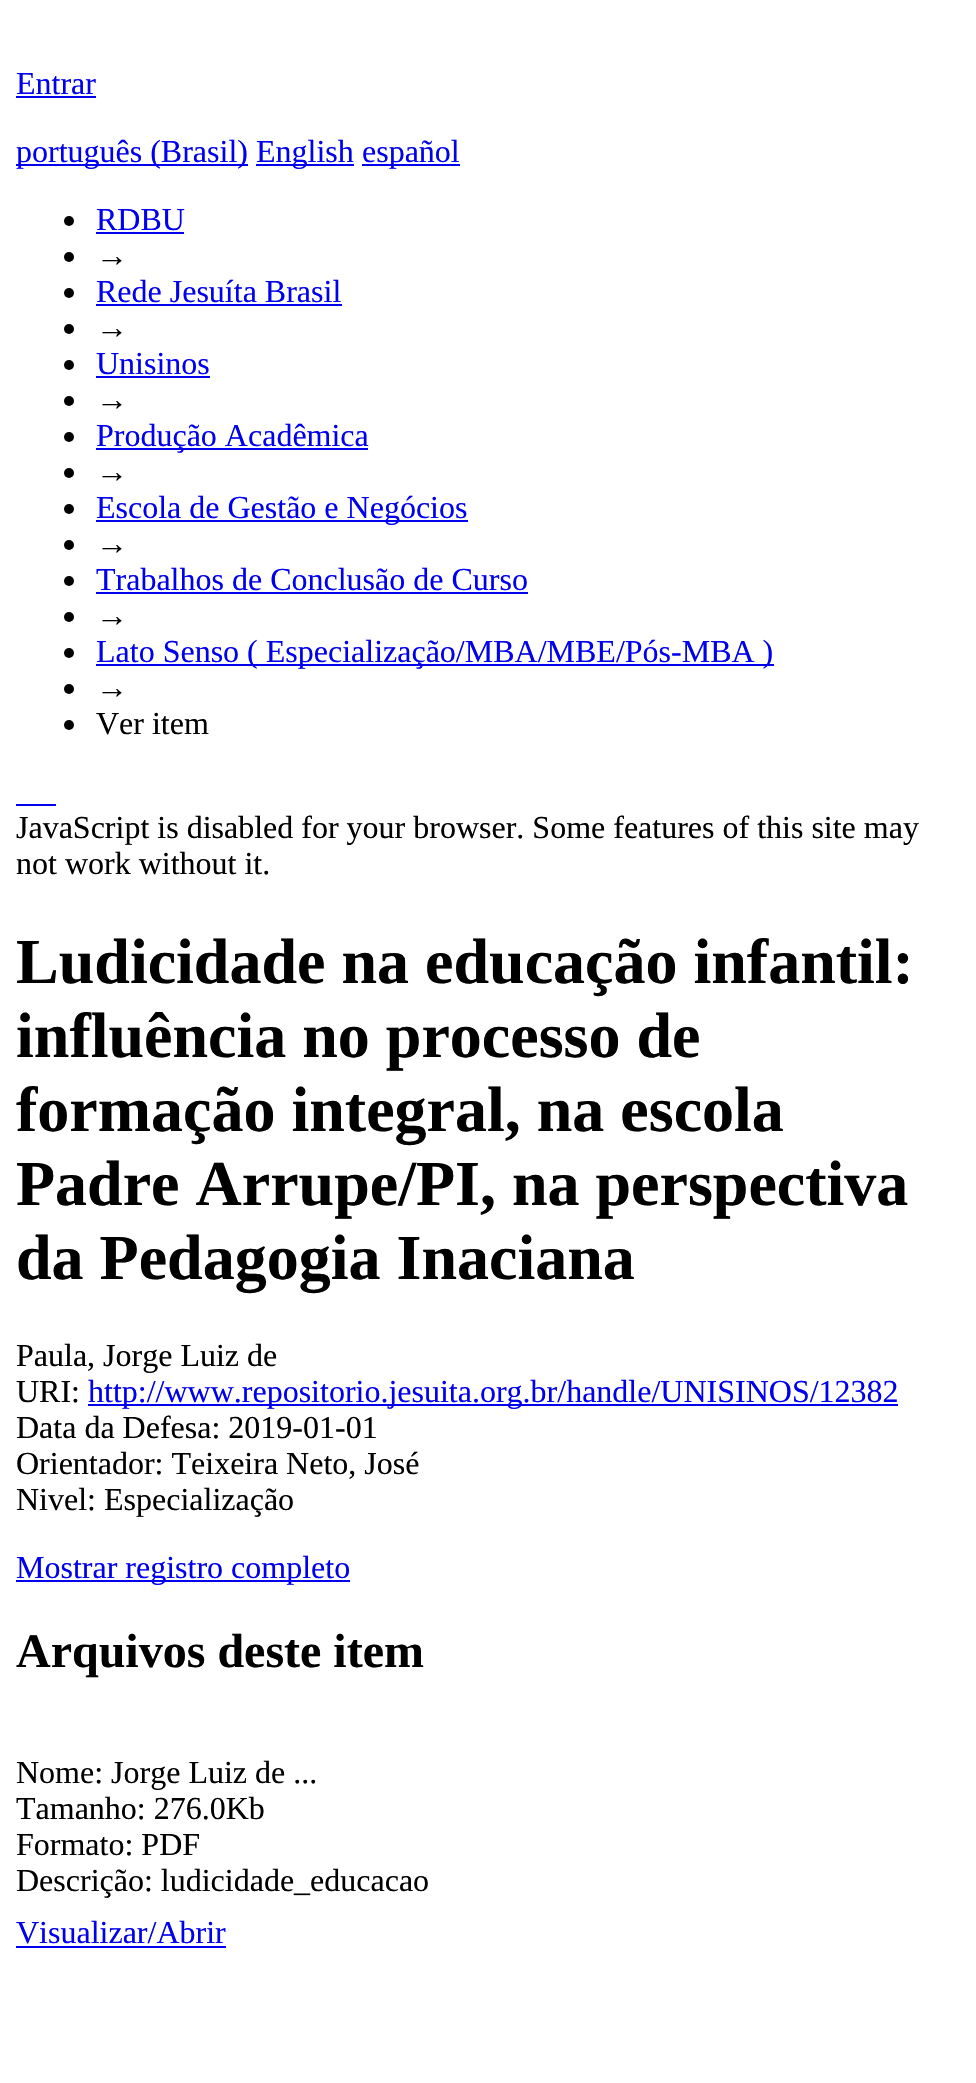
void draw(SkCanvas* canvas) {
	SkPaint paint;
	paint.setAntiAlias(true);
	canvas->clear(0xffffffff);
	SkFont f1(fontMgr->matchFamilyStyle("Liberation Serif", SkFontStyle::Normal()), 32);
	f1.setSubpixel(true);
	paint.setColor(0xff0000ee);
	canvas->drawString("Entrar", 16, 94, f1, paint);
	canvas->drawRect(SkRect::MakeXYWH(16, 96, 80, 2), paint);
	canvas->drawRect(SkRect::MakeXYWH(16, 164, 232, 2), paint);
	canvas->drawString("português (Brasil)", 16, 162, f1, paint);
	canvas->drawRect(SkRect::MakeXYWH(256, 164, 98, 2), paint);
	canvas->drawString("English", 256, 162, f1, paint);
	canvas->drawRect(SkRect::MakeXYWH(362, 164, 98, 2), paint);
	canvas->drawString("español", 362, 162, f1, paint);
	paint.setColor(0xff000000);
	canvas->drawCircle(69, 221, 5, paint);
	paint.setColor(0xff0000ee);
	canvas->drawString("RDBU", 96, 230, f1, paint);
	canvas->drawRect(SkRect::MakeXYWH(96, 232, 88, 2), paint);
	paint.setColor(0xff000000);
	canvas->drawCircle(69, 257, 5, paint);
	canvas->drawString("→", 96, 266, f1, paint);
	canvas->drawCircle(69, 293, 5, paint);
	paint.setColor(0xff0000ee);
	canvas->drawString("Rede Jesuíta Brasil", 96, 302, f1, paint);
	canvas->drawRect(SkRect::MakeXYWH(96, 304, 246, 2), paint);
	paint.setColor(0xff000000);
	canvas->drawCircle(69, 329, 5, paint);
	canvas->drawString("→", 96, 338, f1, paint);
	canvas->drawCircle(69, 365, 5, paint);
	paint.setColor(0xff0000ee);
	canvas->drawString("Unisinos", 96, 374, f1, paint);
	canvas->drawRect(SkRect::MakeXYWH(96, 376, 114, 2), paint);
	paint.setColor(0xff000000);
	canvas->drawCircle(69, 401, 5, paint);
	canvas->drawString("→", 96, 410, f1, paint);
	canvas->drawCircle(69, 437, 5, paint);
	paint.setColor(0xff0000ee);
	canvas->drawRect(SkRect::MakeXYWH(96, 448, 272, 2), paint);
	canvas->drawString("Produção Acadêmica", 96, 446, f1, paint);
	paint.setColor(0xff000000);
	canvas->drawCircle(69, 473, 5, paint);
	canvas->drawString("→", 96, 482, f1, paint);
	canvas->drawCircle(69, 509, 5, paint);
	paint.setColor(0xff0000ee);
	canvas->drawRect(SkRect::MakeXYWH(96, 520, 372, 2), paint);
	canvas->drawString("Escola de Gestão e Negócios", 96, 518, f1, paint);
	paint.setColor(0xff000000);
	canvas->drawCircle(69, 545, 5, paint);
	canvas->drawString("→", 96, 554, f1, paint);
	canvas->drawCircle(69, 581, 5, paint);
	paint.setColor(0xff0000ee);
	canvas->drawString("Trabalhos de Conclusão de Curso", 96, 590, f1, paint);
	canvas->drawRect(SkRect::MakeXYWH(96, 592, 432, 2), paint);
	paint.setColor(0xff000000);
	canvas->drawCircle(69, 617, 5, paint);
	canvas->drawString("→", 96, 626, f1, paint);
	canvas->drawCircle(69, 653, 5, paint);
	paint.setColor(0xff0000ee);
	canvas->drawRect(SkRect::MakeXYWH(96, 664, 678, 2), paint);
	canvas->drawString("Lato Senso ( Especialização/MBA/MBE/Pós-MBA )", 96, 662, f1, paint);
	paint.setColor(0xff000000);
	canvas->drawCircle(69, 689, 5, paint);
	canvas->drawString("→", 96, 698, f1, paint);
	canvas->drawCircle(69, 725, 5, paint);
	canvas->drawString("Ver item", 96, 734, f1, paint);
	paint.setColor(0xff0000ee);
	canvas->drawRect(SkRect::MakeXYWH(16, 804, 40, 2), paint);
	paint.setColor(0xff000000);
	canvas->drawString("JavaScript is disabled for your browser. Some features of this site may", 16, 838, f1, paint);
	canvas->drawString("not work without it.", 16, 874, f1, paint);
	SkFont f2(fontMgr->matchFamilyStyle("Liberation Serif", SkFontStyle::Bold()), 64);
	f2.setSubpixel(true);
	canvas->drawString("Ludicidade na educação infantil:", 16, 983, f2, paint);
	canvas->drawString("influência no processo de", 16, 1057, f2, paint);
	canvas->drawString("formação integral, na escola", 16, 1131, f2, paint);
	canvas->drawString("Padre Arrupe/PI, na perspectiva", 16, 1205, f2, paint);
	canvas->drawString("da Pedagogia Inaciana", 16, 1279, f2, paint);
	canvas->drawString("Paula, Jorge Luiz de", 16, 1366, f1, paint);
	canvas->drawString("URI:", 16, 1402, f1, paint);
	paint.setColor(0xff0000ee);
	canvas->drawRect(SkRect::MakeXYWH(88, 1404, 810, 2), paint);
	canvas->drawString("http://www.repositorio.jesuita.org.br/handle/UNISINOS/12382", 88, 1402, f1, paint);
	paint.setColor(0xff000000);
	canvas->drawString("Data da Defesa: 2019-01-01", 16, 1438, f1, paint);
	canvas->drawString("Orientador: Teixeira Neto, José", 16, 1474, f1, paint);
	canvas->drawString("Nivel: Especialização", 16, 1510, f1, paint);
	paint.setColor(0xff0000ee);
	canvas->drawRect(SkRect::MakeXYWH(16, 1580, 334, 2), paint);
	canvas->drawString("Mostrar registro completo", 16, 1578, f1, paint);
	SkFont f3(fontMgr->matchFamilyStyle("Liberation Serif", SkFontStyle::Bold()), 48);
	f3.setSubpixel(true);
	paint.setColor(0xff000000);
	canvas->drawString("Arquivos deste item", 16, 1667, f3, paint);
	canvas->drawString("Nome: Jorge Luiz de ...", 16, 1783, f1, paint);
	canvas->drawString("Tamanho: 276.0Kb", 16, 1819, f1, paint);
	canvas->drawString("Formato: PDF", 16, 1855, f1, paint);
	canvas->drawString("Descrição: ludicidade_educacao", 16, 1891, f1, paint);
	paint.setColor(0xff0000ee);
	canvas->drawString("Visualizar/Abrir", 16, 1943, f1, paint);
	canvas->drawRect(SkRect::MakeXYWH(16, 1946, 210, 2), paint);
}
